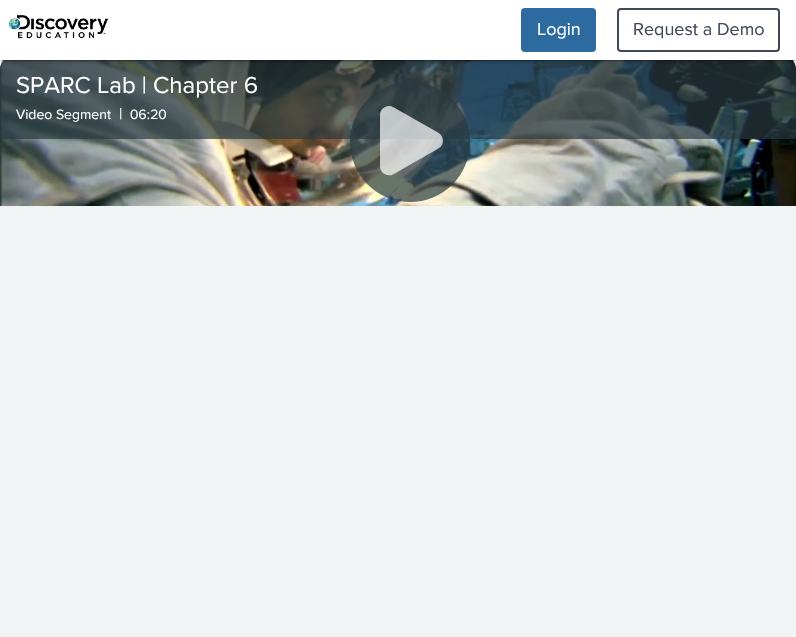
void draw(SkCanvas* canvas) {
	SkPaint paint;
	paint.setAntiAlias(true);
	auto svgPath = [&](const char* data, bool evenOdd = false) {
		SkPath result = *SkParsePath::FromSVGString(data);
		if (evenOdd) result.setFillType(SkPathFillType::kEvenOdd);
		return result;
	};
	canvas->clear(0xffffffff);
	paint.setColor(0xfff0f4f5);
	canvas->drawRoundRect(SkRect::MakeXYWH(0, 54, 796, 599), 16, 16, paint);
	canvas->drawImageRect(SkImages::DeferredFromEncodedData(SkData::MakeFromFileName("img2.png")), SkRect::MakeXYWH(0, 60, 796, 146), SkSamplingOptions());
	paint.setColor(0xb328393e);
	canvas->drawPath(svgPath("M16 54H780C789 54 796 61 796 70V139H0V70C0 61 7 54 16 54Z"), paint);
	paint.setColor(0x33000000);
	paint.setMaskFilter(SkMaskFilter::MakeBlur(kNormal_SkBlurStyle, 0.5));
	canvas->drawRect(SkRect::MakeXYWH(2, 5, 792, 56), paint);
	paint.setMaskFilter(nullptr);
	paint.setColor(0x1f000000);
	paint.setMaskFilter(SkMaskFilter::MakeBlur(kNormal_SkBlurStyle, 2.5));
	canvas->drawRect(SkRect::MakeXYWH(0, 1, 796, 60), paint);
	paint.setMaskFilter(nullptr);
	paint.setColor(0x24000000);
	paint.setMaskFilter(SkMaskFilter::MakeBlur(kNormal_SkBlurStyle, 1));
	canvas->drawRect(SkRect::MakeXYWH(0, 2, 796, 60), paint);
	paint.setMaskFilter(nullptr);
	paint.setColor(0xffffffff);
	canvas->drawRect(SkRect::MakeXYWH(0, 0, 796, 60), paint);
	canvas->drawImageRect(SkImages::DeferredFromEncodedData(SkData::MakeFromFileName("img1.png")), SkRect::MakeXYWH(8, 15, 100, 24), SkSamplingOptions());
	paint.setColor(0xff2d6a9f);
	canvas->drawRoundRect(SkRect::MakeXYWH(521, 8, 75, 44), 4, 4, paint);
	SkFont f1(fontMgr->matchFamilyStyle("Proxima Nova", SkFontStyle::Normal()), 18);
	f1.setSubpixel(true);
	paint.setColor(0xffffffff);
	canvas->drawString("Login", 537, 35, f1, paint);
	paint.setStroke(true);
	paint.setStrokeWidth(2);
	paint.setColor(0xff414858);
	canvas->drawRoundRect(SkRect::MakeXYWH(618, 9, 161, 42), 3, 3, paint);
	paint.setStroke(false);
	canvas->drawString("Request a Demo", 633, 35, f1, paint);
	SkFont f2(fontMgr->matchFamilyStyle("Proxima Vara", SkFontStyle::Normal()), 24);
	f2.setSubpixel(true);
	paint.setColor(0xffffffff);
	canvas->drawString("SPARC Lab | Chapter 6", 16, 93, f2, paint);
	SkFont f3(fontMgr->matchFamilyStyle("Proxima Vara", SkFontStyle::Normal()), 14);
	f3.setSubpixel(true);
	canvas->drawString("Video Segment", 16, 119, f3, paint);
	SkFont f4(fontMgr->matchFamilyStyle("Proxima Vara", SkFontStyle::Normal()), 16);
	f4.setSubpixel(true);
	canvas->drawString("|", 119, 119, f4, paint);
	canvas->drawString("06:20", 130, 119, f3, paint);
	paint.setColor(0xb328393e);
	canvas->drawCircle(410, 142, 60, paint);
	canvas->drawImageRect(SkImages::DeferredFromEncodedData(SkData::MakeFromFileName("img3.png")), SkRect::MakeXYWH(380, 106, 63, 70), SkSamplingOptions());
}
